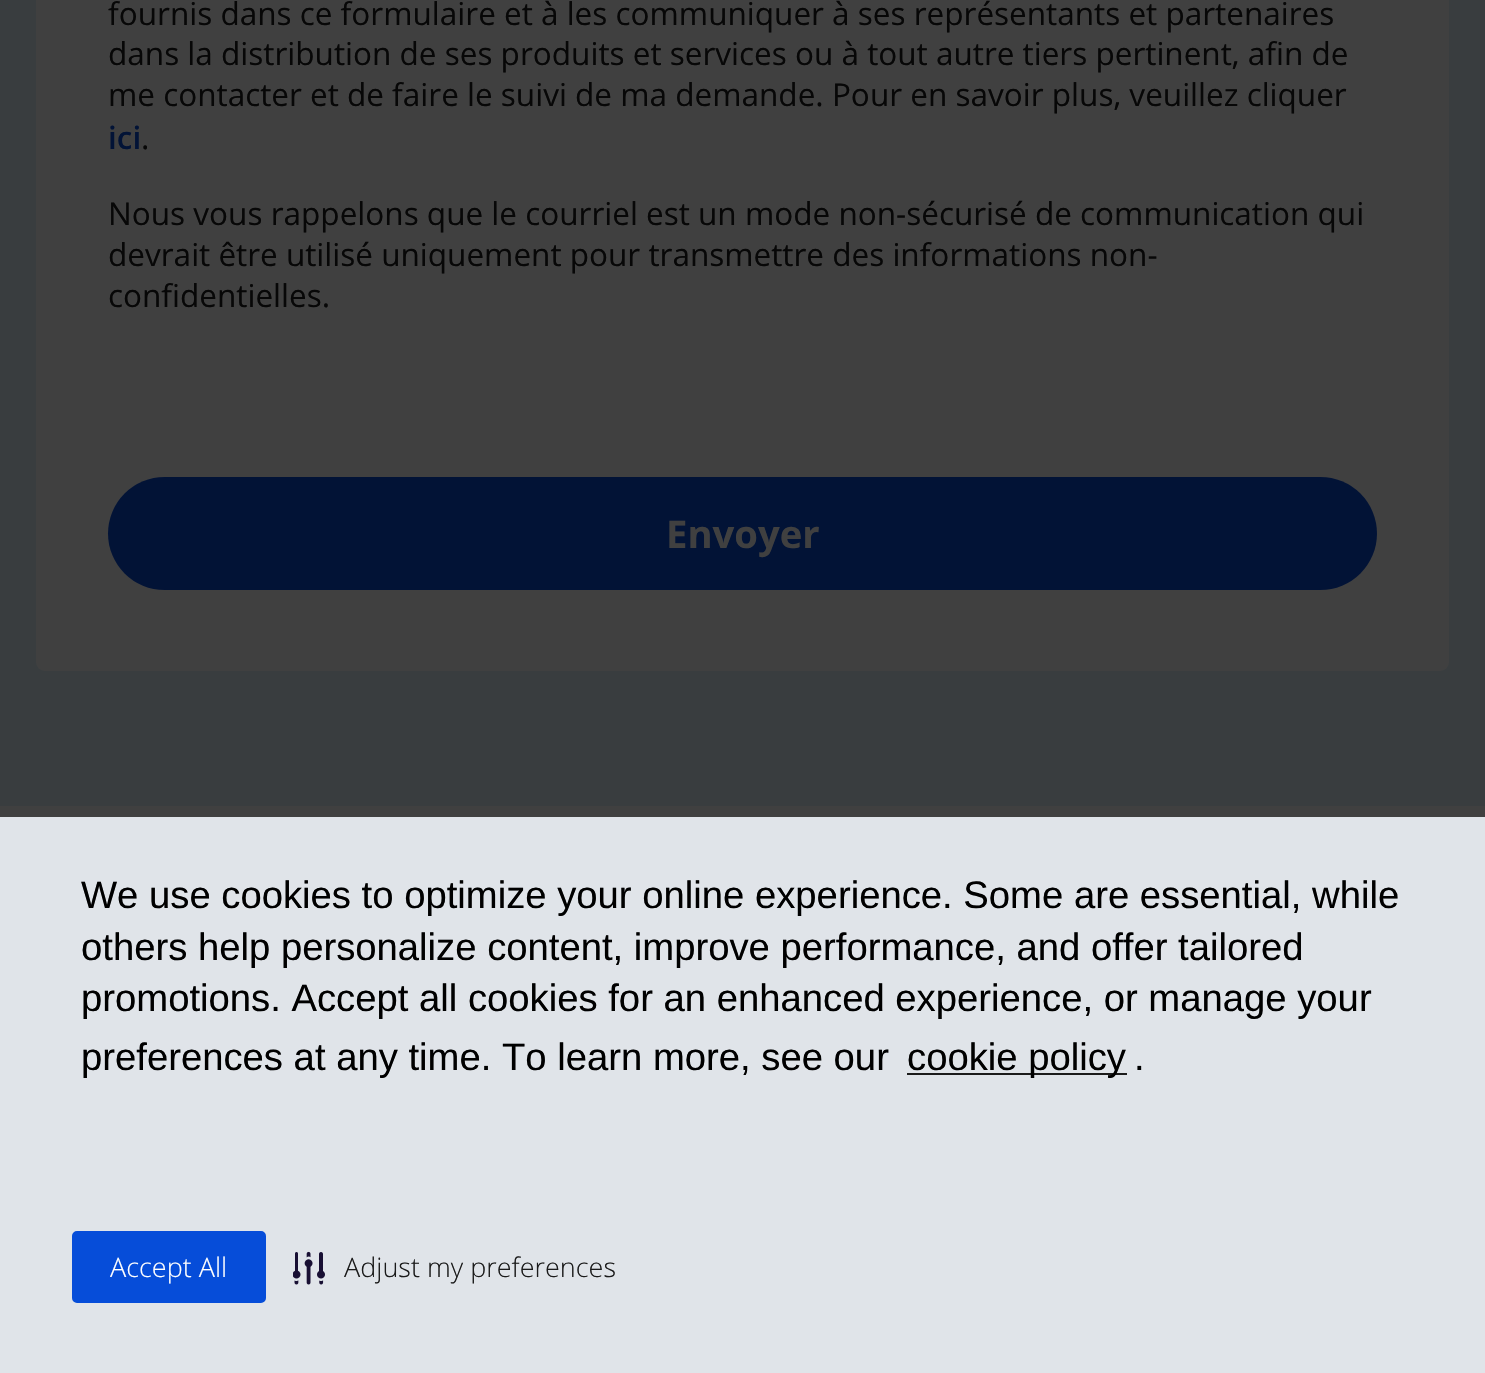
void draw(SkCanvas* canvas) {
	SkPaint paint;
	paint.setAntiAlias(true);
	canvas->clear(0xff404040);
	paint.setColor(0xff393d3f);
	canvas->drawRect(SkRect::MakeXYWH(0, 0, 1485, 806), paint);
	paint.setColor(0xff404040);
	canvas->drawRoundRect(SkRect::MakeXYWH(36, -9, 1413, 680), 9, 9, paint);
	SkFont f1(fontMgr->matchFamilyStyle("Open Sans", SkFontStyle::Normal()), 31.5);
	f1.setSubpixel(true);
	paint.setColor(0xff070707);
	canvas->drawString("fournis dans ce formulaire et à les communiquer à ses représentants et partenaires", 108, 25, f1, paint);
	canvas->drawString("dans la distribution de ses produits et services ou à tout autre tiers pertinent, afin de", 108, 65, f1, paint);
	canvas->drawString("me contacter et de faire le suivi de ma demande. Pour en savoir plus, veuillez cliquer", 108, 106, f1, paint);
	SkFont f2(fontMgr->matchFamilyStyle("Open Sans", SkFontStyle(600, SkFontStyle::kNormal_Width, SkFontStyle::kUpright_Slant)), 31.5);
	f2.setSubpixel(true);
	paint.setColor(0xff021336);
	canvas->drawString("ici", 108, 149, f2, paint);
	paint.setColor(0xff070707);
	canvas->drawString(".", 141, 149, f1, paint);
	canvas->drawString("Nous vous rappelons que le courriel est un mode non-sécurisé de communication qui", 108, 225, f1, paint);
	canvas->drawString("devrait être utilisé uniquement pour transmettre des informations non-", 108, 266, f1, paint);
	canvas->drawString("confidentielles.", 108, 307, f1, paint);
	paint.setColor(0xff021336);
	canvas->drawRoundRect(SkRect::MakeXYWH(108, 477, 1269, 113), 56.5, 56.5, paint);
	SkFont f3(fontMgr->matchFamilyStyle("Open Sans", SkFontStyle::Bold()), 38.25);
	f3.setSubpixel(true);
	paint.setColor(0xff404040);
	canvas->drawString("Envoyer", 666, 548, f3, paint);
	paint.setColor(0xffe0e4e9);
	canvas->drawRect(SkRect::MakeXYWH(0, 817, 1485, 556), paint);
	SkFont f4(fontMgr->matchFamilyStyle("Liberation Sans", SkFontStyle::Normal()), 38.25);
	f4.setSubpixel(true);
	paint.setColor(0xff000000);
	canvas->drawString("We use cookies to optimize your online experience. Some are essential, while", 81, 908, f4, paint);
	canvas->drawString("others help personalize content, improve performance, and offer tailored", 81, 960, f4, paint);
	canvas->drawString("promotions. Accept all cookies for an enhanced experience, or manage your", 81, 1011, f4, paint);
	canvas->drawString("preferences at any time. To learn more, see our", 81, 1070, f4, paint);
	paint.setColor(0xff1b1b1b);
	canvas->drawRect(SkRect::MakeXYWH(907, 1073, 220, 2), paint);
	paint.setColor(0xff000000);
	canvas->drawString("cookie policy", 907, 1070, f4, paint);
	canvas->drawString(".", 1134, 1070, f4, paint);
	paint.setColor(0xff064dd9);
	canvas->drawRoundRect(SkRect::MakeXYWH(73, 1232, 192, 70), 4, 4, paint);
	paint.setStroke(true);
	paint.setStrokeWidth(2);
	canvas->drawRoundRect(SkRect::MakeXYWH(73, 1232, 192, 70), 4, 4, paint);
	SkFont f5(fontMgr->matchFamilyStyle("Open Sans", SkFontStyle(300, SkFontStyle::kNormal_Width, SkFontStyle::kUpright_Slant)), 27);
	f5.setSubpixel(true);
	paint.setStroke(false);
	paint.setColor(0xffffffff);
	canvas->drawString("Accept All", 110, 1277, f5, paint);
	canvas->drawImageRect(SkImages::DeferredFromEncodedData(SkData::MakeFromFileName("img1.png")), SkRect::MakeXYWH(293, 1251, 32, 34), SkSamplingOptions());
	paint.setColor(0xff1b1b1b);
	canvas->drawString("Adjust my preferences", 344, 1277, f5, paint);
}
